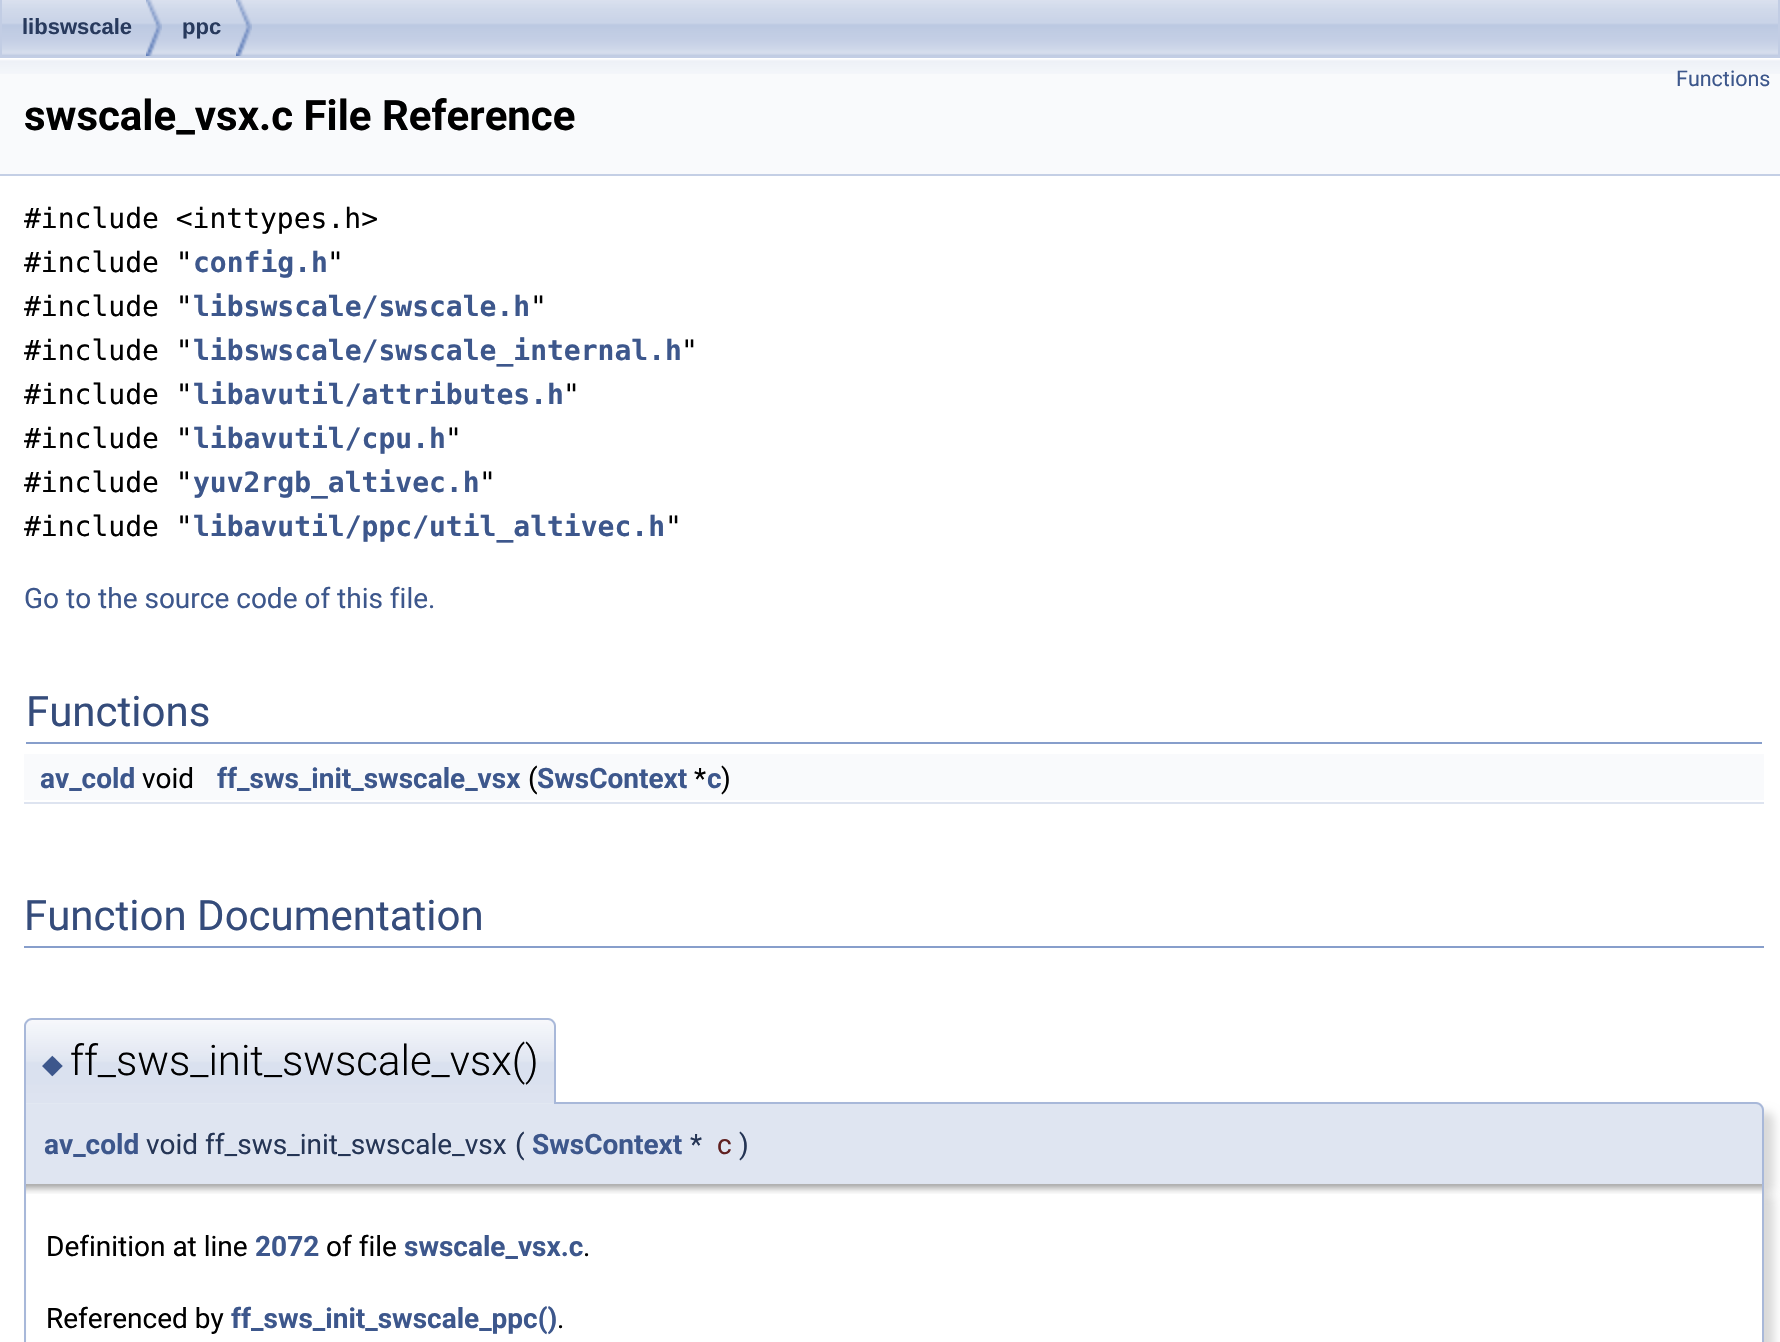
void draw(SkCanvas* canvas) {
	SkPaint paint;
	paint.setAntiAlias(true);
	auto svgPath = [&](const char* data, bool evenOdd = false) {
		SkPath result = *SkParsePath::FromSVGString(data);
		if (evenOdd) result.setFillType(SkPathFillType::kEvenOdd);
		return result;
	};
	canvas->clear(0xffffffff);
	canvas->drawImageRect(SkImages::DeferredFromEncodedData(SkData::MakeFromFileName("img1.png")), SkRect::MakeXYWH(2, 0, 1776, 56), SkSamplingOptions());
	paint.setStroke(true);
	paint.setStrokeWidth(2);
	paint.setColor(0xffc2cde4);
	canvas->drawRect(SkRect::MakeXYWH(1, -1, 1778, 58), paint);
	canvas->drawImageRect(SkImages::DeferredFromEncodedData(SkData::MakeFromFileName("img2.png")), SkRect::MakeXYWH(146, 0, 16, 56), SkSamplingOptions());
	SkFont f1(fontMgr->matchFamilyStyle("Liberation Sans", SkFontStyle::Bold()), 22);
	f1.setSubpixel(true);
	paint.setStroke(false);
	paint.setColor(0xff283a5d);
	canvas->drawString("libswscale", 22, 34, f1, paint);
	canvas->drawImageRect(SkImages::DeferredFromEncodedData(SkData::MakeFromFileName("img2.png")), SkRect::MakeXYWH(236, 0, 16, 56), SkSamplingOptions());
	canvas->drawString("ppc", 182, 34, f1, paint);
	paint.setColor(0xfff9fafc);
	canvas->drawRect(SkRect::MakeXYWH(0, 74, 1780, 100), paint);
	canvas->drawImageRect(SkImages::DeferredFromEncodedData(SkData::MakeFromFileName("img3.png")), SkRect::MakeXYWH(0, 58, 1780, 16), SkSamplingOptions());
	paint.setColor(0xffc4cfe5);
	canvas->drawRect(SkRect::MakeXYWH(0, 174, 1780, 2), paint);
	SkFont f2(fontMgr->matchFamilyStyle("Roboto", SkFontStyle::Normal()), 21.5);
	f2.setSubpixel(true);
	paint.setColor(0xff3d578c);
	canvas->drawString("Functions", 1676, 86, f2, paint);
	SkFont f3(fontMgr->matchFamilyStyle("Roboto", SkFontStyle::Bold()), 42);
	f3.setSubpixel(true);
	paint.setColor(0xff000000);
	canvas->drawString("swscale_vsx.c File Reference", 24, 130, f3, paint);
	SkFont f4(fontMgr->matchFamilyStyle("DejaVu Sans Mono", SkFontStyle::Normal()), 28);
	f4.setSubpixel(true);
	canvas->drawString("#include <inttypes.h>", 24, 228, f4, paint);
	canvas->drawString("#include \"", 24, 272, f4, paint);
	SkFont f5(fontMgr->matchFamilyStyle("DejaVu Sans Mono", SkFontStyle::Bold()), 28);
	f5.setSubpixel(true);
	paint.setColor(0xff3d578c);
	canvas->drawString("config.h", 193, 272, f5, paint);
	paint.setColor(0xff000000);
	canvas->drawString("\"", 327, 272, f4, paint);
	canvas->drawString("#include \"", 24, 316, f4, paint);
	paint.setColor(0xff3d578c);
	canvas->drawString("libswscale/swscale.h", 193, 316, f5, paint);
	paint.setColor(0xff000000);
	canvas->drawString("\"", 530, 316, f4, paint);
	canvas->drawString("#include \"", 24, 360, f4, paint);
	paint.setColor(0xff3d578c);
	canvas->drawString("libswscale/swscale_internal.h", 193, 360, f5, paint);
	paint.setColor(0xff000000);
	canvas->drawString("\"", 681, 360, f4, paint);
	canvas->drawString("#include \"", 24, 404, f4, paint);
	paint.setColor(0xff3d578c);
	canvas->drawString("libavutil/attributes.h", 193, 404, f5, paint);
	paint.setColor(0xff000000);
	canvas->drawString("\"", 563, 404, f4, paint);
	canvas->drawString("#include \"", 24, 448, f4, paint);
	paint.setColor(0xff3d578c);
	canvas->drawString("libavutil/cpu.h", 193, 448, f5, paint);
	paint.setColor(0xff000000);
	canvas->drawString("\"", 445, 448, f4, paint);
	canvas->drawString("#include \"", 24, 492, f4, paint);
	paint.setColor(0xff3d578c);
	canvas->drawString("yuv2rgb_altivec.h", 193, 492, f5, paint);
	paint.setColor(0xff000000);
	canvas->drawString("\"", 479, 492, f4, paint);
	canvas->drawString("#include \"", 24, 536, f4, paint);
	paint.setColor(0xff3d578c);
	canvas->drawString("libavutil/ppc/util_altivec.h", 193, 536, f5, paint);
	paint.setColor(0xff000000);
	canvas->drawString("\"", 665, 536, f4, paint);
	SkFont f6(fontMgr->matchFamilyStyle("Roboto", SkFontStyle::Normal()), 28);
	f6.setSubpixel(true);
	paint.setColor(0xff3d578c);
	canvas->drawString("Go to the source code of this file.", 24, 608, f6, paint);
	paint.setColor(0xff879ecb);
	canvas->drawRect(SkRect::MakeXYWH(26, 742, 1736, 2), paint);
	SkFont f7(fontMgr->matchFamilyStyle("Roboto", SkFontStyle::Normal()), 42);
	f7.setSubpixel(true);
	paint.setColor(0xff354c7b);
	canvas->drawString("Functions", 26, 726, f7, paint);
	paint.setColor(0xfff9fafc);
	canvas->drawRect(SkRect::MakeXYWH(24, 754, 1740, 46), paint);
	SkFont f8(fontMgr->matchFamilyStyle("Roboto", SkFontStyle::Bold()), 28);
	f8.setSubpixel(true);
	paint.setColor(0xff3d578c);
	canvas->drawString("av_cold", 40, 788, f8, paint);
	paint.setColor(0xff000000);
	canvas->drawString("void", 142, 788, f6, paint);
	paint.setColor(0xff3d578c);
	canvas->drawString("ff_sws_init_swscale_vsx", 217, 788, f8, paint);
	paint.setColor(0xff000000);
	canvas->drawString("(", 528, 788, f6, paint);
	paint.setColor(0xff3d578c);
	canvas->drawString("SwsContext", 537, 788, f8, paint);
	paint.setColor(0xff000000);
	canvas->drawString("*", 694, 788, f6, paint);
	paint.setColor(0xff3d578c);
	canvas->drawString("c", 707, 788, f8, paint);
	paint.setColor(0xff000000);
	canvas->drawString(")", 721, 788, f6, paint);
	paint.setColor(0xffdee4f0);
	canvas->drawRect(SkRect::MakeXYWH(24, 802, 1740, 2), paint);
	paint.setColor(0xff879ecb);
	canvas->drawRect(SkRect::MakeXYWH(24, 946, 1740, 2), paint);
	paint.setColor(0xff354c7b);
	canvas->drawString("Function Documentation", 24, 930, f7, paint);
	paint.setColor(0x26000000);
	paint.setMaskFilter(SkMaskFilter::MakeBlur(kNormal_SkBlurStyle, 5));
	canvas->drawRoundRect(SkRect::MakeXYWH(34, 1112, 1740, 82), 8, 8, paint);
	paint.setMaskFilter(nullptr);
	paint.setColor(0xffdfe5f1);
	canvas->drawPath(svgPath("M24 1102H1756C1760.5 1102 1764 1105.5 1764 1110V1184H24Z"), paint);
	paint.setColor(0xffa8b8d9);
	canvas->drawPath(svgPath("M24 1102H1756C1760 1102 1764 1106 1764 1110V1184H24ZM26 1104H1756C1759 1104 1762 1107 1762 1110V1184H26Z", true), paint);
	paint.setColor(0xffe2e8f2);
	canvas->drawPath(svgPath("M32 1018H548C552.5 1018 556 1021.5 556 1026V1104H24V1026C24 1021.5 27.5 1018 32 1018Z"), paint);
	canvas->drawImageRect(SkImages::DeferredFromEncodedData(SkData::MakeFromFileName("img4.png")), SkRect::MakeXYWH(24, 1020, 532, 83), SkSamplingOptions());
	paint.setColor(0xffa8b8d9);
	canvas->drawPath(svgPath("M32 1018H548C552 1018 556 1022 556 1026V1104H24V1026C24 1022 28 1018 32 1018ZM32 1020H548C551 1020 554 1023 554 1026V1104H26V1026C26 1023 29 1020 32 1020Z", true), paint);
	SkFont f9(fontMgr->matchFamilyStyle("DejaVu Sans", SkFontStyle::Normal()), 27);
	f9.setSubpixel(true);
	paint.setColor(0xff3d578c);
	canvas->drawString("◆", 42, 1073, f9, paint);
	SkFont f10(fontMgr->matchFamilyStyle("Roboto", SkFontStyle(300, SkFontStyle::kNormal_Width, SkFontStyle::kUpright_Slant)), 42);
	f10.setSubpixel(true);
	paint.setColor(0xff000000);
	canvas->drawString("ff_sws_init_swscale_vsx()", 70, 1075, f10, paint);
	paint.setColor(0xff3d578c);
	canvas->drawString("av_cold", 44, 1154, f8, paint);
	paint.setColor(0xff253555);
	canvas->drawString("void ff_sws_init_swscale_vsx", 146, 1154, f6, paint);
	canvas->drawString("(", 515, 1154, f6, paint);
	paint.setColor(0xff3d578c);
	canvas->drawString("SwsContext", 532, 1154, f8, paint);
	paint.setColor(0xff253555);
	canvas->drawString("*", 690, 1154, f6, paint);
	paint.setColor(0xff602020);
	canvas->drawString("c", 717, 1154, f6, paint);
	paint.setColor(0xff253555);
	canvas->drawString(")", 739, 1154, f6, paint);
	paint.setColor(0x26000000);
	paint.setMaskFilter(SkMaskFilter::MakeBlur(kNormal_SkBlurStyle, 5));
	canvas->drawRoundRect(SkRect::MakeXYWH(34, 1194, 1740, 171), 8, 8, paint);
	paint.setMaskFilter(nullptr);
	paint.setColor(0xffffffff);
	canvas->drawRect(SkRect::MakeXYWH(27, 1184, 1735, 158), paint);
	canvas->drawImageRect(SkImages::DeferredFromEncodedData(SkData::MakeFromFileName("img5.png")), SkRect::MakeXYWH(26, 1184, 1736, 10), SkSamplingOptions());
	paint.setColor(0xffa8b8d9);
	canvas->drawPath(svgPath("M24 1184H1764V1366C1764 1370 1760 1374 1756 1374H32C28 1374 24 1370 24 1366ZM26 1184H1762V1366C1762 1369 1759 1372 1756 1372H32C29 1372 26 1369 26 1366Z", true), paint);
	paint.setColor(0xff000000);
	canvas->drawString("Definition at line", 46, 1256, f6, paint);
	paint.setColor(0xff3d578c);
	canvas->drawString("2072", 255, 1256, f8, paint);
	paint.setColor(0xff000000);
	canvas->drawString("of file", 326, 1256, f6, paint);
	paint.setColor(0xff3d578c);
	canvas->drawString("swscale_vsx.c", 404, 1256, f8, paint);
	paint.setColor(0xff000000);
	canvas->drawString(".", 583, 1256, f6, paint);
	canvas->drawString("Referenced by", 46, 1328, f6, paint);
	paint.setColor(0xff3d578c);
	canvas->drawString("ff_sws_init_swscale_ppc()", 231, 1328, f8, paint);
	paint.setColor(0xff000000);
	canvas->drawString(".", 557, 1328, f6, paint);
}
